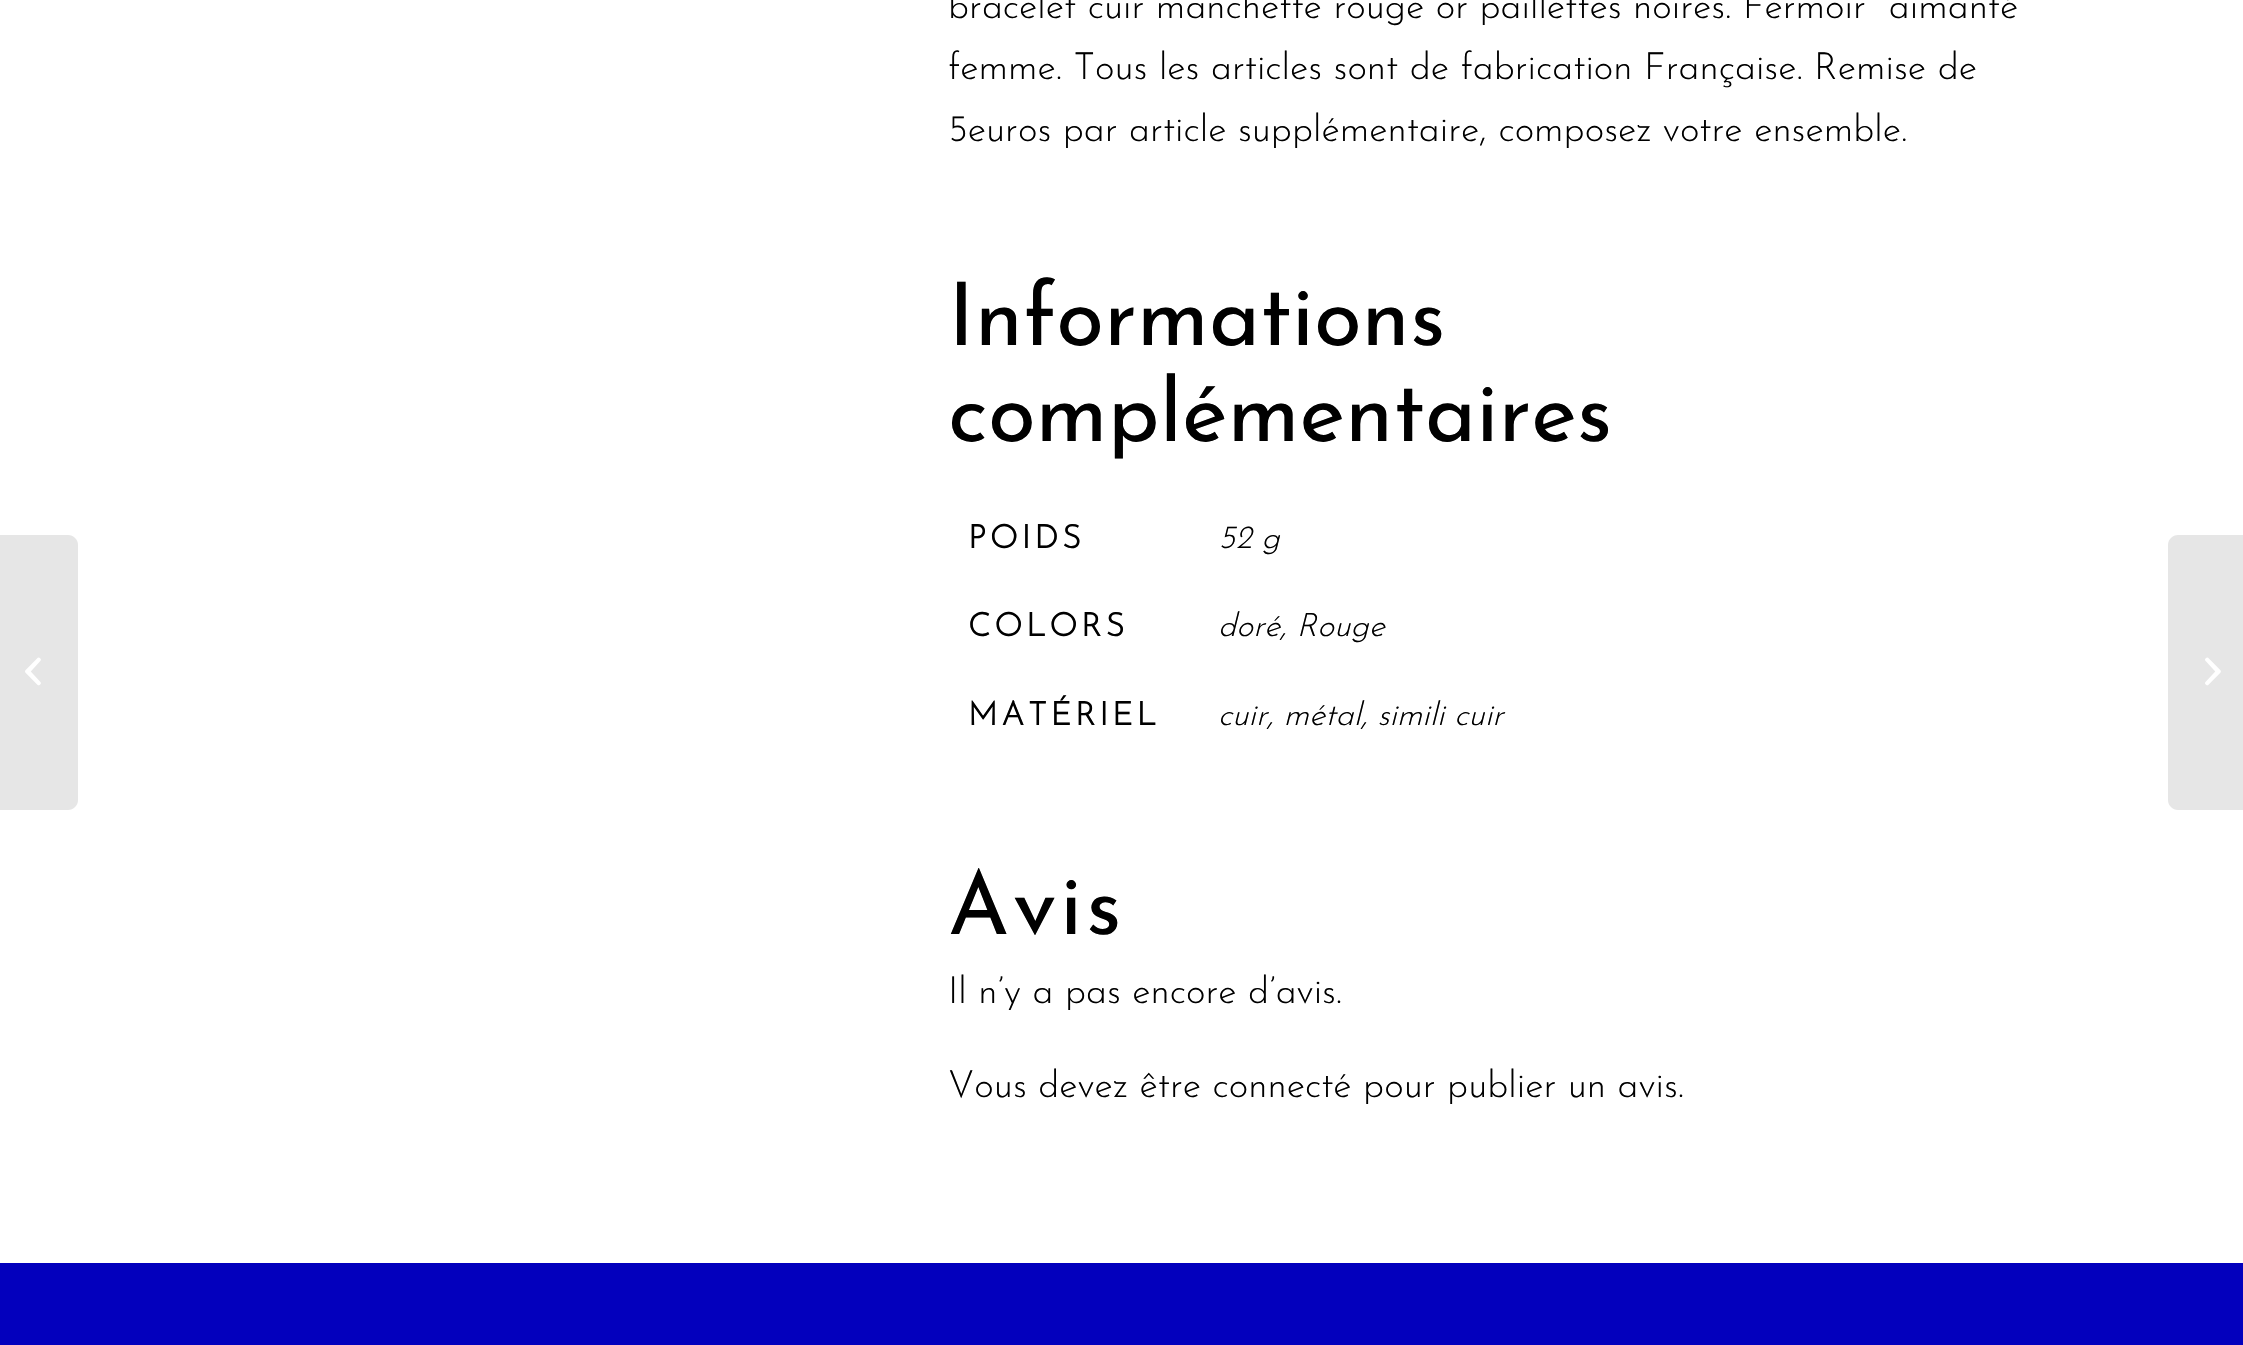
void draw(SkCanvas* canvas) {
	SkPaint paint;
	paint.setAntiAlias(true);
	auto spacedText = [&](const char* s, float x, float y, const SkFont& font, const SkPaint& ink, float letter, float word) {
		std::vector<SkGlyphID> glyphs(font.countText(s, strlen(s), SkTextEncoding::kUTF8));
		std::vector<float> xs(glyphs.size());
		font.textToGlyphs(s, strlen(s), SkTextEncoding::kUTF8, glyphs);
		font.getXPos(glyphs, xs, x);
		float extra = 0;
		for (size_t i = 0; i < glyphs.size(); i++) {
			xs[i] += extra;
			extra += letter + word * (glyphs[i] == font.unicharToGlyph(' '));
		}
		canvas->drawTextBlob(SkTextBlob::MakeFromPosHGlyphs(glyphs, xs, y, font), 0, 0, ink);
	};
	auto svgPath = [&](const char* data, bool evenOdd = false) {
		SkPath result = *SkParsePath::FromSVGString(data);
		if (evenOdd) result.setFillType(SkPathFillType::kEvenOdd);
		return result;
	};
	canvas->clear(0xffffffff);
	paint.setColor(0xffe6e6e6);
	canvas->drawPath(svgPath("M0 535H68C73.5 535 78 539.5 78 545V800C78 805.5 73.5 810 68 810H0Z"), paint);
	canvas->drawImageRect(SkImages::DeferredFromEncodedData(SkData::MakeFromFileName("img1.png")), SkRect::MakeXYWH(25, 657, 16, 29), SkSamplingOptions());
	SkFont f1(fontMgr->matchFamilyStyle("Josefin Sans", SkFontStyle(300, SkFontStyle::kNormal_Width, SkFontStyle::kUpright_Slant)), 37.5);
	f1.setSubpixel(true);
	paint.setColor(0xff000000);
	canvas->drawString("bracelet cuir manchette rouge or paillettes noires. Fermoir  aimanté", 948, 18, f1, paint);
	canvas->drawString("femme. Tous les articles sont de fabrication Française. Remise de", 948, 79, f1, paint);
	canvas->drawString("5euros par article supplémentaire, composez votre ensemble.", 948, 141, f1, paint);
	SkFont f2(fontMgr->matchFamilyStyle("Josefin Sans", SkFontStyle::Normal()), 87.5);
	f2.setSubpixel(true);
	canvas->drawString("Informations", 948, 345, f2, paint);
	canvas->drawString("complémentaires", 948, 441, f2, paint);
	SkFont f3(fontMgr->matchFamilyStyle("Josefin Sans", SkFontStyle::Bold()), 32.5);
	f3.setSubpixel(true);
	spacedText("POIDS", 968, 548, f3, paint, 3.75, 0);
	SkFont f4(fontMgr->matchFamilyStyle("Josefin Sans", SkFontStyle(300, SkFontStyle::kNormal_Width, SkFontStyle::kItalic_Slant)), 32.5);
	f4.setSubpixel(true);
	canvas->drawString("52 g", 1218, 548, f4, paint);
	spacedText("COLORS", 968, 636, f3, paint, 3.75, 0);
	canvas->drawString("doré, Rouge", 1218, 636, f4, paint);
	spacedText("MATÉRIEL", 968, 725, f3, paint, 3.75, 0);
	canvas->drawString("cuir, métal, simili cuir", 1218, 725, f4, paint);
	spacedText("Avis", 948, 934, f2, paint, 3.75, 0);
	canvas->drawString("Il n’y a pas encore d’avis.", 948, 1003, f1, paint);
	canvas->drawString("Vous devez être connecté pour publier un avis.", 948, 1097, f1, paint);
	paint.setColor(0xff0300bd);
	canvas->drawRect(SkRect::MakeXYWH(0, 1263, 2243, 82), paint);
	paint.setColor(0xffe6e6e6);
	canvas->drawPath(svgPath("M2178 535H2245V810H2178C2172.5 810 2168 805.5 2168 800V545C2168 539.5 2172.5 535 2178 535Z"), paint);
	canvas->drawImageRect(SkImages::DeferredFromEncodedData(SkData::MakeFromFileName("img2.png")), SkRect::MakeXYWH(2205, 657, 16, 29), SkSamplingOptions());
}
